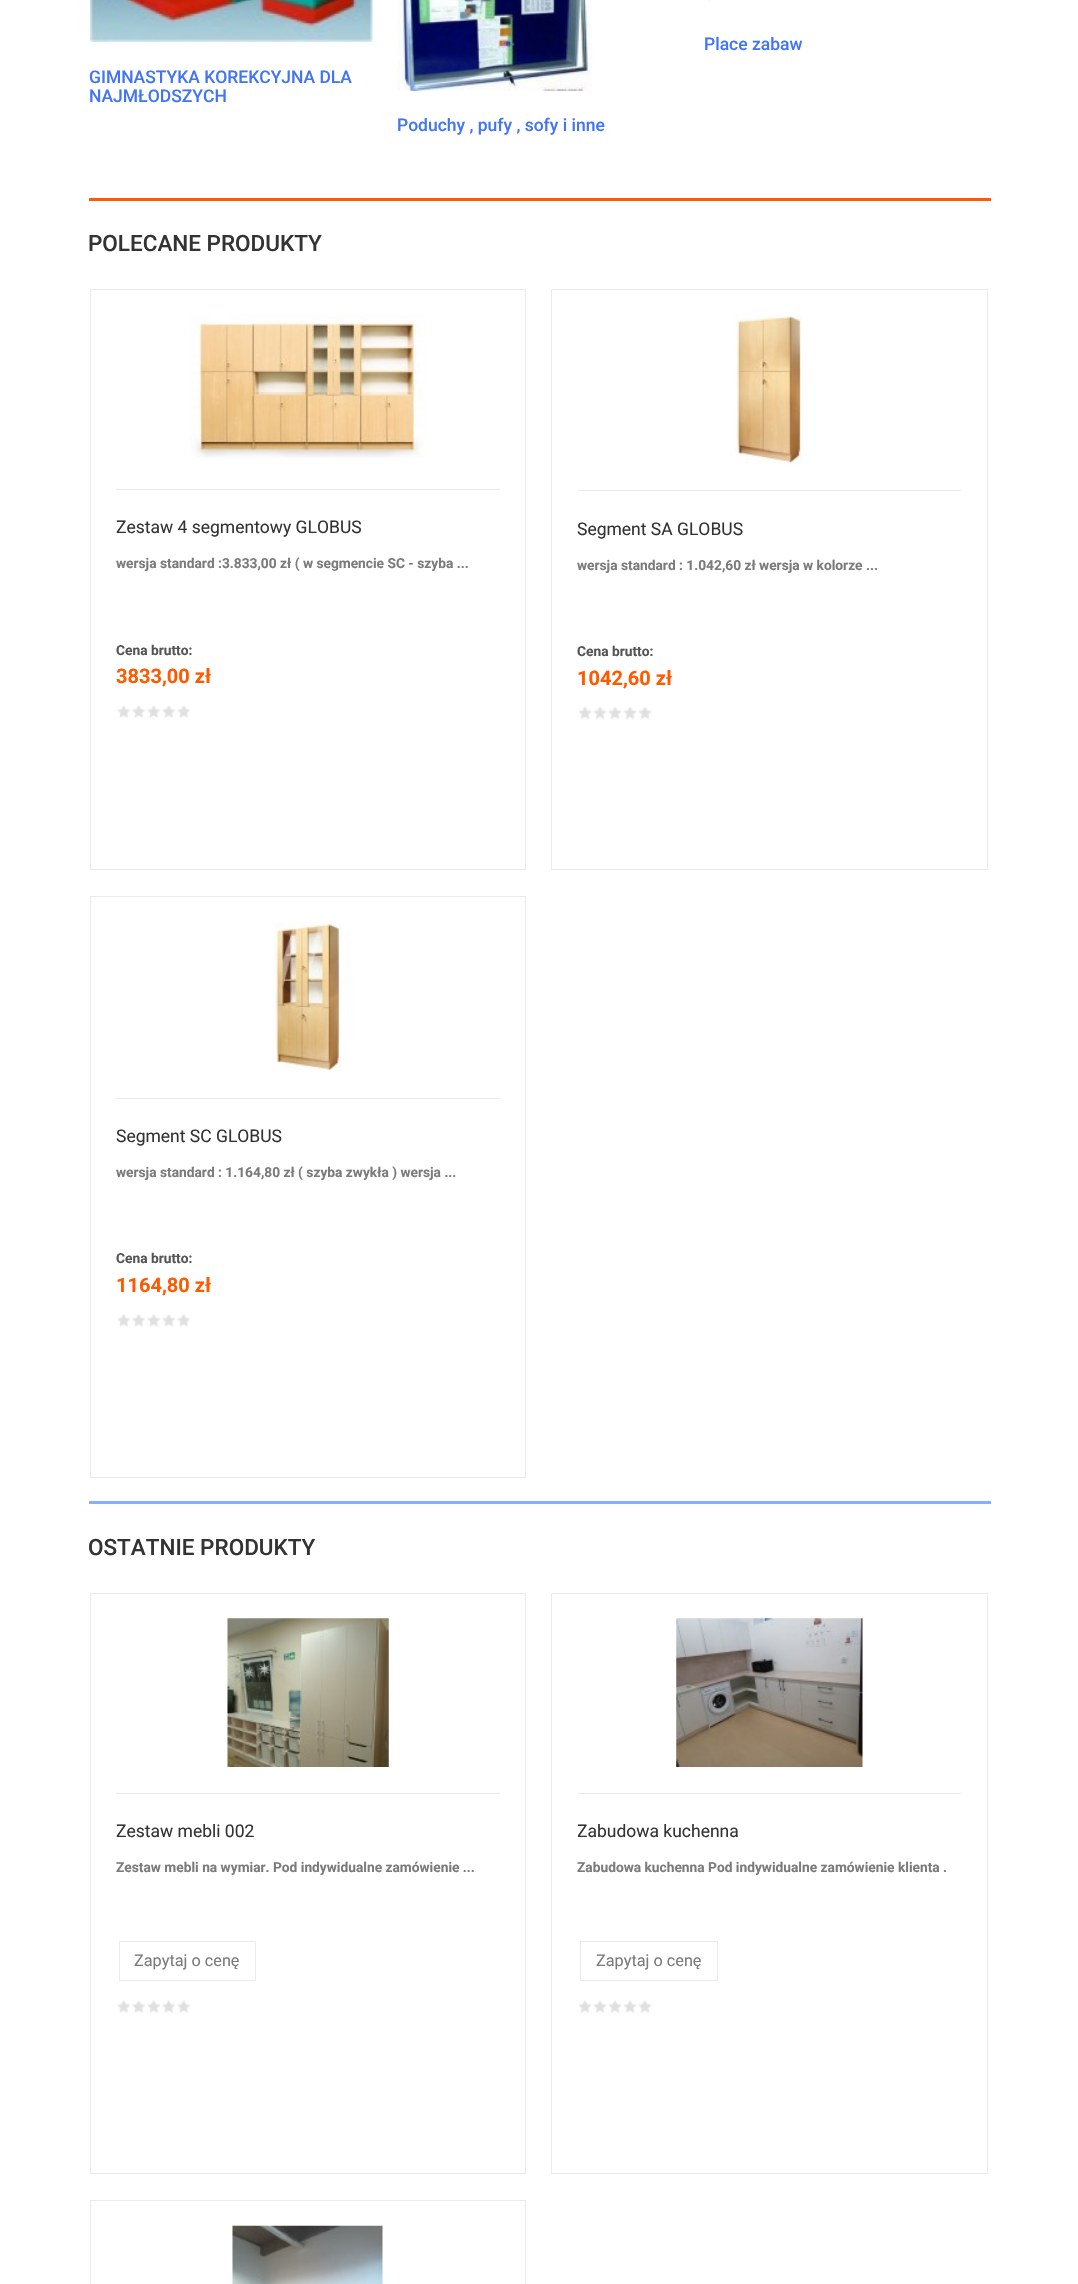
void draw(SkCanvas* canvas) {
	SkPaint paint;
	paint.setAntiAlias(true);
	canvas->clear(0xffffffff);
	canvas->drawImageRect(SkImages::DeferredFromEncodedData(SkData::MakeFromFileName("img1.png")), SkRect::MakeXYWH(708, 0, 3, 1), SkSamplingOptions());
	SkFont f1(fontMgr->matchFamilyStyle("Roboto", SkFontStyle(500, SkFontStyle::kNormal_Width, SkFontStyle::kUpright_Slant)), 17.5);
	f1.setSubpixel(true);
	paint.setColor(0xff4275f4);
	canvas->drawString("Place zabaw", 704, 50, f1, paint);
	canvas->drawImageRect(SkImages::DeferredFromEncodedData(SkData::MakeFromFileName("img2.png")), SkRect::MakeXYWH(90, 0, 283, 42), SkSamplingOptions());
	canvas->drawString("GIMNASTYKA KOREKCYJNA DLA", 89, 83, f1, paint);
	canvas->drawString("NAJMŁODSZYCH", 89, 102, f1, paint);
	canvas->drawImageRect(SkImages::DeferredFromEncodedData(SkData::MakeFromFileName("img3.png")), SkRect::MakeXYWH(397, 0, 195, 91), SkSamplingOptions());
	canvas->drawString("Poduchy , pufy , sofy i inne", 397, 131, f1, paint);
	paint.setColor(0xffff5a00);
	canvas->drawRect(SkRect::MakeXYWH(89, 198, 902, 3), paint);
	SkFont f2(fontMgr->matchFamilyStyle("Roboto", SkFontStyle(500, SkFontStyle::kNormal_Width, SkFontStyle::kUpright_Slant)), 22.5);
	f2.setSubpixel(true);
	paint.setColor(0xff333333);
	canvas->drawString("POLECANE PRODUKTY", 88, 251, f2, paint);
	paint.setStroke(true);
	paint.setStrokeWidth(1);
	paint.setColor(0xffebebeb);
	canvas->drawRect(SkRect::MakeXYWH(90.5, 289.5, 435, 580), paint);
	paint.setStroke(false);
	canvas->drawRect(SkRect::MakeXYWH(116, 489, 384, 1), paint);
	canvas->drawImageRect(SkImages::DeferredFromEncodedData(SkData::MakeFromFileName("img4.png")), SkRect::MakeXYWH(190, 314, 235, 144), SkSamplingOptions());
	SkFont f3(fontMgr->matchFamilyStyle("Roboto", SkFontStyle::Normal()), 17.5);
	f3.setSubpixel(true);
	paint.setColor(0xff333333);
	canvas->drawString("Zestaw 4 segmentowy GLOBUS", 116, 533, f3, paint);
	SkFont f4(fontMgr->matchFamilyStyle("Roboto", SkFontStyle::Bold()), 13.75);
	f4.setSubpixel(true);
	paint.setColor(0xff7b7b7b);
	canvas->drawString("wersja standard :3.833,00 zł ( w segmencie SC - szyba ...", 116, 568, f4, paint);
	paint.setColor(0xff555555);
	canvas->drawString("Cena brutto:", 116, 655, f4, paint);
	SkFont f5(fontMgr->matchFamilyStyle("Roboto", SkFontStyle::Bold()), 20);
	f5.setSubpixel(true);
	paint.setColor(0xffff5a00);
	canvas->drawString("3833,00 zł", 116, 683, f5, paint);
	canvas->drawImageRect(SkImages::DeferredFromEncodedData(SkData::MakeFromFileName("img5.png")), SkRect::MakeXYWH(117, 705, 73, 13), SkSamplingOptions());
	paint.setStroke(true);
	paint.setColor(0xffebebeb);
	canvas->drawRect(SkRect::MakeXYWH(551.5, 289.5, 436, 580), paint);
	paint.setStroke(false);
	canvas->drawRect(SkRect::MakeXYWH(578, 490, 383, 1), paint);
	canvas->drawImageRect(SkImages::DeferredFromEncodedData(SkData::MakeFromFileName("img6.png")), SkRect::MakeXYWH(735, 314, 68, 151), SkSamplingOptions());
	paint.setColor(0xff333333);
	canvas->drawString("Segment SA GLOBUS", 577, 535, f3, paint);
	paint.setColor(0xff7b7b7b);
	canvas->drawString("wersja standard : 1.042,60 zł wersja w kolorze ...", 577, 570, f4, paint);
	paint.setColor(0xff555555);
	canvas->drawString("Cena brutto:", 577, 656, f4, paint);
	paint.setColor(0xffff5a00);
	canvas->drawString("1042,60 zł", 577, 685, f5, paint);
	canvas->drawImageRect(SkImages::DeferredFromEncodedData(SkData::MakeFromFileName("img7.png")), SkRect::MakeXYWH(578, 707, 74, 13), SkSamplingOptions());
	paint.setStroke(true);
	paint.setColor(0xffebebeb);
	canvas->drawRect(SkRect::MakeXYWH(90.5, 896.5, 435, 581), paint);
	paint.setStroke(false);
	canvas->drawRect(SkRect::MakeXYWH(116, 1098, 384, 1), paint);
	canvas->drawImageRect(SkImages::DeferredFromEncodedData(SkData::MakeFromFileName("img8.png")), SkRect::MakeXYWH(274, 922, 67, 150), SkSamplingOptions());
	paint.setColor(0xff333333);
	canvas->drawString("Segment SC GLOBUS", 116, 1142, f3, paint);
	paint.setColor(0xff7b7b7b);
	canvas->drawString("wersja standard : 1.164,80 zł ( szyba zwykła ) wersja ...", 116, 1177, f4, paint);
	paint.setColor(0xff555555);
	canvas->drawString("Cena brutto:", 116, 1263, f4, paint);
	paint.setColor(0xffff5a00);
	canvas->drawString("1164,80 zł", 116, 1292, f5, paint);
	canvas->drawImageRect(SkImages::DeferredFromEncodedData(SkData::MakeFromFileName("img9.png")), SkRect::MakeXYWH(117, 1314, 73, 13), SkSamplingOptions());
	paint.setColor(0xff82b1ff);
	canvas->drawRect(SkRect::MakeXYWH(89, 1501, 902, 3), paint);
	paint.setColor(0xff333333);
	canvas->drawString("OSTATNIE PRODUKTY", 88, 1555, f2, paint);
	paint.setStroke(true);
	paint.setColor(0xffebebeb);
	canvas->drawRect(SkRect::MakeXYWH(90.5, 1593.5, 435, 580), paint);
	paint.setStroke(false);
	canvas->drawRect(SkRect::MakeXYWH(116, 1793, 384, 1), paint);
	canvas->drawImageRect(SkImages::DeferredFromEncodedData(SkData::MakeFromFileName("img10.png")), SkRect::MakeXYWH(227, 1618, 162, 149), SkSamplingOptions());
	paint.setColor(0xff333333);
	canvas->drawString("Zestaw mebli 002", 116, 1837, f3, paint);
	paint.setColor(0xff7b7b7b);
	canvas->drawString("Zestaw mebli na wymiar. Pod indywidualne zamówienie ...", 116, 1872, f4, paint);
	paint.setStroke(true);
	paint.setColor(0xffebebeb);
	canvas->drawRect(SkRect::MakeXYWH(119.5, 1941.5, 136, 39), paint);
	SkFont f6(fontMgr->matchFamilyStyle("Roboto", SkFontStyle::Normal()), 16.25);
	f6.setSubpixel(true);
	paint.setStroke(false);
	paint.setColor(0xff7b7b7b);
	canvas->drawString("Zapytaj o cenę", 134, 1966, f6, paint);
	canvas->drawImageRect(SkImages::DeferredFromEncodedData(SkData::MakeFromFileName("img5.png")), SkRect::MakeXYWH(117, 2000, 73, 13), SkSamplingOptions());
	paint.setStroke(true);
	paint.setColor(0xffebebeb);
	canvas->drawRect(SkRect::MakeXYWH(551.5, 1593.5, 436, 580), paint);
	paint.setStroke(false);
	canvas->drawRect(SkRect::MakeXYWH(578, 1793, 383, 1), paint);
	canvas->drawImageRect(SkImages::DeferredFromEncodedData(SkData::MakeFromFileName("img11.png")), SkRect::MakeXYWH(676, 1618, 187, 149), SkSamplingOptions());
	canvas->save();
	canvas->clipRect(SkRect::MakeXYWH(578, 1819, 383, 25));
	paint.setColor(0xff333333);
	canvas->drawString("Zabudowa kuchenna", 577, 1837, f3, paint);
	canvas->restore();
	paint.setColor(0xff7b7b7b);
	canvas->drawString("Zabudowa kuchenna Pod indywidualne zamówienie klienta .", 577, 1872, f4, paint);
	paint.setStroke(true);
	paint.setColor(0xffebebeb);
	canvas->drawRect(SkRect::MakeXYWH(580.5, 1941.5, 137, 39), paint);
	paint.setStroke(false);
	paint.setColor(0xff7b7b7b);
	canvas->drawString("Zapytaj o cenę", 596, 1966, f6, paint);
	canvas->drawImageRect(SkImages::DeferredFromEncodedData(SkData::MakeFromFileName("img12.png")), SkRect::MakeXYWH(578, 2000, 74, 13), SkSamplingOptions());
	paint.setStroke(true);
	paint.setColor(0xffebebeb);
	canvas->drawRect(SkRect::MakeXYWH(90.5, 2200.5, 435, 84), paint);
	canvas->drawImageRect(SkImages::DeferredFromEncodedData(SkData::MakeFromFileName("img13.png")), SkRect::MakeXYWH(232, 2225, 151, 59), SkSamplingOptions());
}
